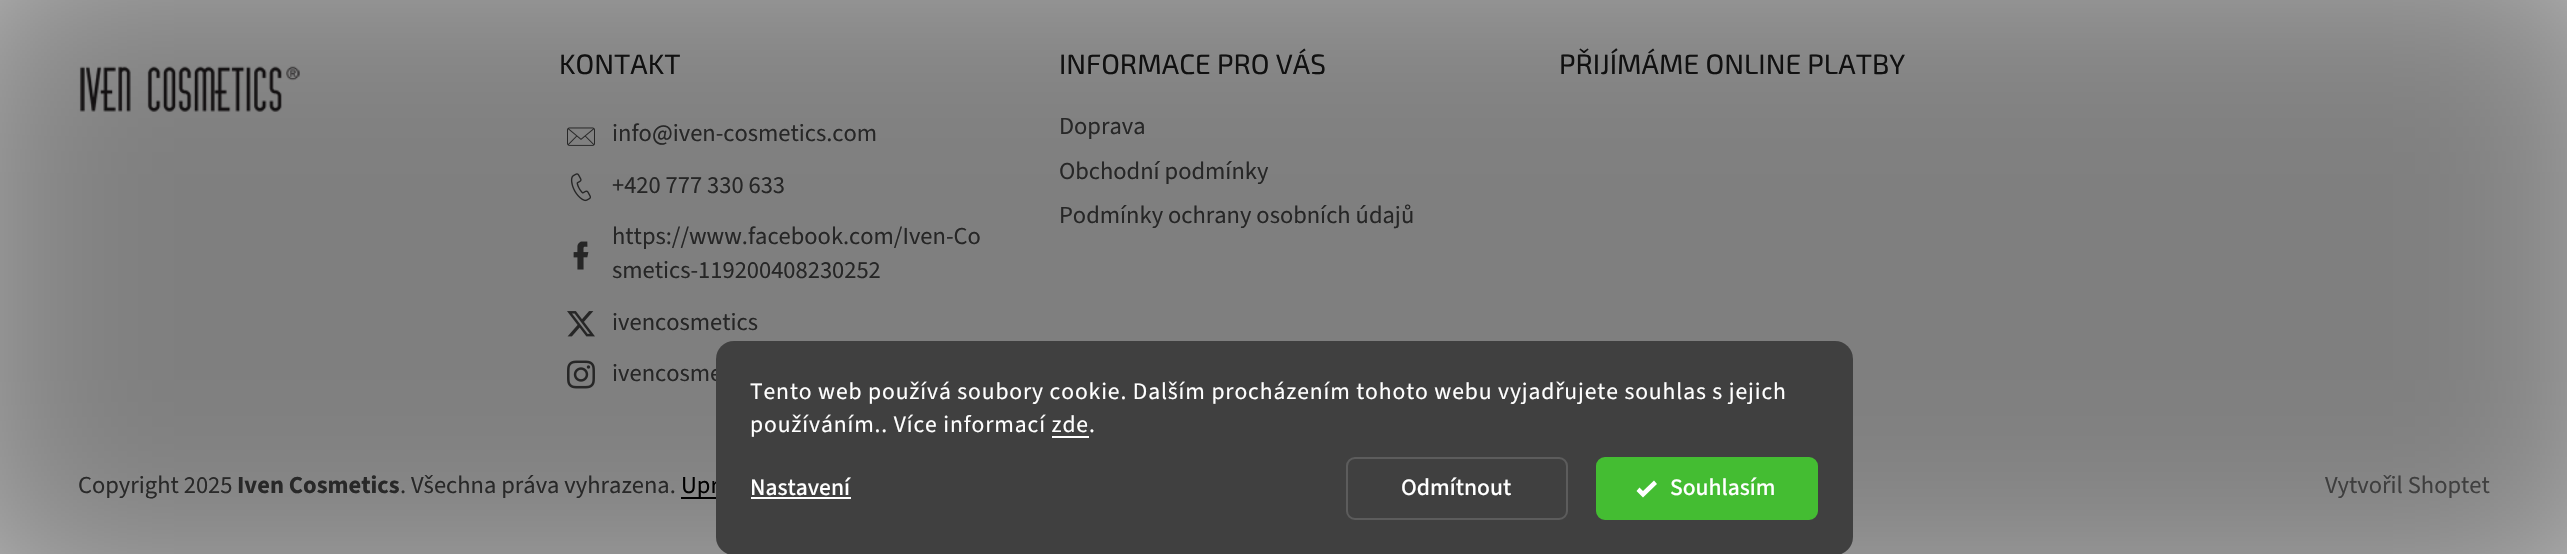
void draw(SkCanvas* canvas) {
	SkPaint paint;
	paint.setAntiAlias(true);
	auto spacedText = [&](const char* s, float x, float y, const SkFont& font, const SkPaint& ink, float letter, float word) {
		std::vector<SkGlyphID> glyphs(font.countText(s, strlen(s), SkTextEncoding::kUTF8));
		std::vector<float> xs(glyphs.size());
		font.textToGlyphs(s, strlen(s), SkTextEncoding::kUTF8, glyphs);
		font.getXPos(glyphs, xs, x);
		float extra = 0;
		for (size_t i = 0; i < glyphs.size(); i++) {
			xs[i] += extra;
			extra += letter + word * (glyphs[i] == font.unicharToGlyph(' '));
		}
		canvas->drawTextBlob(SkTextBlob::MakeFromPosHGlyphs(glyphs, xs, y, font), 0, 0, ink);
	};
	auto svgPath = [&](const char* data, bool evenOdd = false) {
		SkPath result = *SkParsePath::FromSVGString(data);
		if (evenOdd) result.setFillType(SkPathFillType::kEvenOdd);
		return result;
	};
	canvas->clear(0xffffffff);
	canvas->drawImageRect(SkImages::DeferredFromEncodedData(SkData::MakeFromFileName("img1.png")), SkRect::MakeXYWH(79, 66, 221, 46), SkSamplingOptions());
	SkFont f1(fontMgr->matchFamilyStyle("Exo 2", SkFontStyle::Normal()), 28);
	f1.setSubpixel(true);
	paint.setColor(0xff1f1f1f);
	canvas->drawString("KONTAKT", 559, 74, f1, paint);
	canvas->drawImageRect(SkImages::DeferredFromEncodedData(SkData::MakeFromFileName("img2.png")), SkRect::MakeXYWH(567, 127, 28, 19), SkSamplingOptions());
	SkFont f2(fontMgr->matchFamilyStyle("Source Sans 3", SkFontStyle::Normal()), 24.5);
	f2.setSubpixel(true);
	paint.setColor(0xff4d4d4d);
	canvas->drawString("info@iven-cosmetics.com", 612, 141, f2, paint);
	canvas->drawImageRect(SkImages::DeferredFromEncodedData(SkData::MakeFromFileName("img3.png")), SkRect::MakeXYWH(570, 173, 21, 29), SkSamplingOptions());
	canvas->drawString("+420 777 330 633", 612, 193, f2, paint);
	canvas->drawString("https://www.facebook.com/Iven-Co", 612, 244, f2, paint);
	canvas->drawImageRect(SkImages::DeferredFromEncodedData(SkData::MakeFromFileName("img4.png")), SkRect::MakeXYWH(573, 241, 16, 29), SkSamplingOptions());
	canvas->drawString("smetics-119200408230252", 612, 278, f2, paint);
	canvas->drawImageRect(SkImages::DeferredFromEncodedData(SkData::MakeFromFileName("img5.png")), SkRect::MakeXYWH(567, 311, 28, 26), SkSamplingOptions());
	canvas->drawString("ivencosmetics", 612, 330, f2, paint);
	canvas->drawImageRect(SkImages::DeferredFromEncodedData(SkData::MakeFromFileName("img6.png")), SkRect::MakeXYWH(567, 360, 28, 29), SkSamplingOptions());
	canvas->drawString("ivencosme", 612, 381, f2, paint);
	paint.setColor(0xff1f1f1f);
	canvas->drawString("INFORMACE PRO VÁS", 1059, 74, f1, paint);
	paint.setColor(0xff4d4d4d);
	canvas->drawString("Doprava", 1059, 134, f2, paint);
	canvas->drawString("Obchodní podmínky", 1059, 179, f2, paint);
	canvas->drawString("Podmínky ochrany osobních údajů", 1059, 223, f2, paint);
	paint.setColor(0xff1f1f1f);
	canvas->drawString("PŘIJÍMÁME ONLINE PLATBY", 1559, 74, f1, paint);
	paint.setColor(0xff4d4d4d);
	canvas->drawString("Copyright 2025", 78, 493, f2, paint);
	SkFont f3(fontMgr->matchFamilyStyle("Source Sans 3", SkFontStyle::Bold()), 24.5);
	f3.setSubpixel(true);
	canvas->drawString("Iven Cosmetics", 237, 493, f3, paint);
	canvas->drawString(". Všechna práva vyhrazena.", 400, 493, f2, paint);
	paint.setColor(0xff000000);
	canvas->drawRect(SkRect::MakeXYWH(681, 497, 35, 2), paint);
	canvas->drawString("Upr", 681, 493, f2, paint);
	paint.setColor(0xff767676);
	canvas->drawString("Vytvořil Shoptet", 2325, 493, f2, paint);
	paint.setColor(0x80000000);
	paint.setMaskFilter(SkMaskFilter::MakeBlur(kNormal_SkBlurStyle, 140));
	canvas->drawRoundRect(SkRect::MakeXYWH(-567, -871, 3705, 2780), 1302, 1302, paint);
	paint.setMaskFilter(nullptr);
	paint.setColor(0xff404040);
	canvas->drawRoundRect(SkRect::MakeXYWH(716, 341, 1137, 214), 18, 18, paint);
	SkFont f4(fontMgr->matchFamilyStyle("Source Sans 3", SkFontStyle::Normal()), 23.6);
	f4.setSubpixel(true);
	paint.setColor(0xffffffff);
	spacedText("Tento web používá soubory cookie. Dalším procházením tohoto webu vyjadřujete souhlas s jejich", 750, 399, f4, paint, 0.88, 0);
	spacedText("používáním.. Více informací zde.", 750, 432, f4, paint, 0.88, 0);
	canvas->drawRect(SkRect::MakeXYWH(1052, 436, 37, 2), paint);
	SkFont f5(fontMgr->matchFamilyStyle("Source Sans 3", SkFontStyle(500, SkFontStyle::kNormal_Width, SkFontStyle::kUpright_Slant)), 23.6);
	f5.setSubpixel(true);
	canvas->drawString("Nastavení", 750, 495, f5, paint);
	canvas->drawRect(SkRect::MakeXYWH(751, 497, 100, 2), paint);
	paint.setStroke(true);
	paint.setStrokeWidth(2);
	paint.setColor(0xff5c5c5c);
	canvas->drawRoundRect(SkRect::MakeXYWH(1347, 458, 220, 61), 8, 8, paint);
	paint.setStroke(false);
	paint.setColor(0xffffffff);
	canvas->drawString("Odmítnout", 1401, 495, f5, paint);
	paint.setColor(0xff44bd32);
	canvas->drawRoundRect(SkRect::MakeXYWH(1597, 458, 220, 61), 8, 8, paint);
	paint.setStroke(true);
	canvas->drawRoundRect(SkRect::MakeXYWH(1597, 458, 220, 61), 8, 8, paint);
	paint.setStroke(false);
	paint.setColor(0xffffffff);
	canvas->drawPath(svgPath("M1654 480.5L1643 491L1639.5 487.5L1636.5 491L1643 497.5L1657 484Z"), paint);
	canvas->drawString("Souhlasím", 1670, 495, f5, paint);
}
